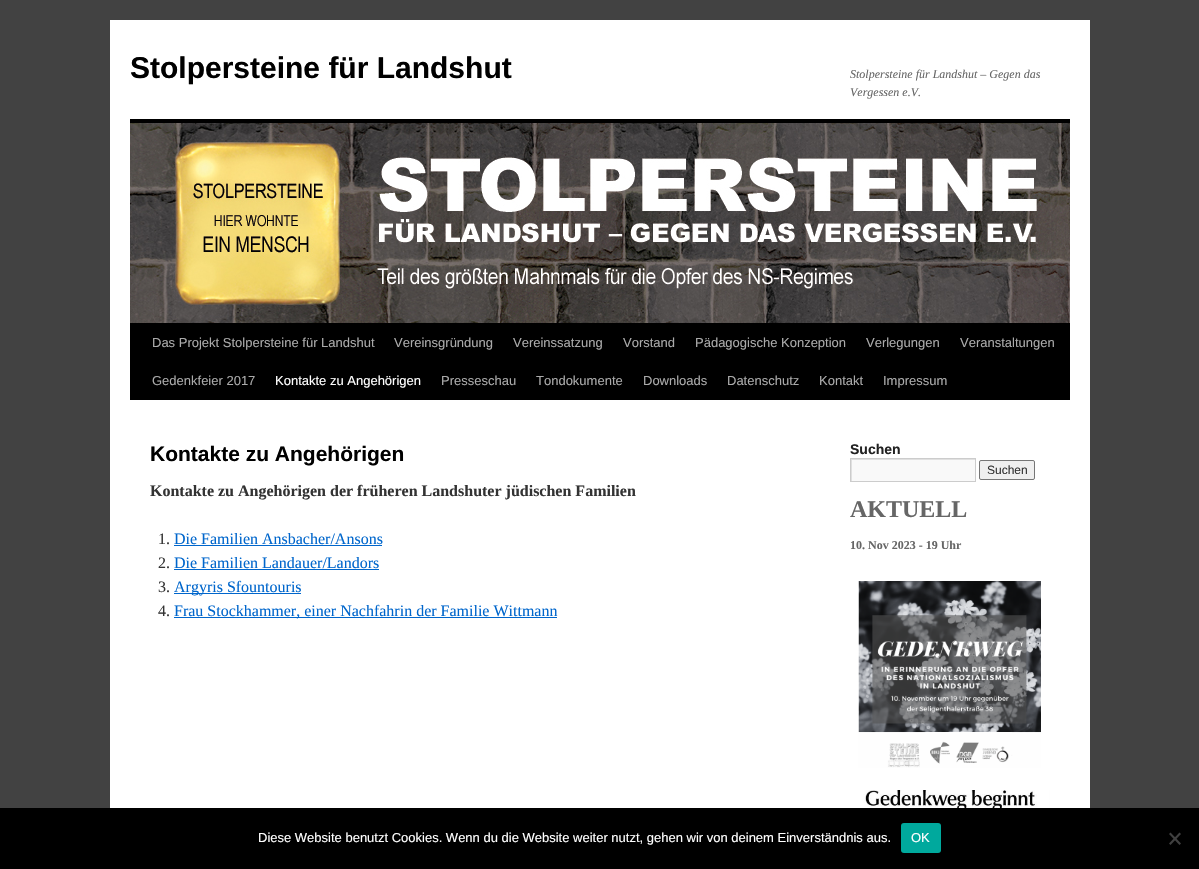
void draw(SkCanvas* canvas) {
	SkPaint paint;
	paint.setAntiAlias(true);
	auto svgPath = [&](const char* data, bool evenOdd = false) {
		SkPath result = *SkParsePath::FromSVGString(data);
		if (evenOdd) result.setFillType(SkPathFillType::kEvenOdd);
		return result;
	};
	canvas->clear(0xff424242);
	paint.setColor(0xffffffff);
	canvas->drawRect(SkRect::MakeXYWH(110, 20, 980, 788), paint);
	SkFont f1(fontMgr->matchFamilyStyle("Liberation Sans", SkFontStyle::Bold()), 30);
	f1.setSubpixel(true);
	paint.setColor(0xff000000);
	canvas->drawString("Stolpersteine für Landshut", 130, 78, f1, paint);
	SkFont f2(fontMgr->matchFamilyStyle("Liberation Serif", SkFontStyle::Italic()), 12);
	f2.setSubpixel(true);
	paint.setColor(0xff666666);
	canvas->drawString("Stolpersteine für Landshut – Gegen das", 850, 78, f2, paint);
	canvas->drawString("Vergessen e.V.", 850, 96, f2, paint);
	paint.setColor(0xff000000);
	canvas->drawRect(SkRect::MakeXYWH(130, 119, 940, 4), paint);
	canvas->drawRect(SkRect::MakeXYWH(130, 323, 940, 77), paint);
	canvas->drawImageRect(SkImages::DeferredFromEncodedData(SkData::MakeFromFileName("img1.png")), SkRect::MakeXYWH(130, 123, 940, 200), SkSamplingOptions());
	SkFont f3(fontMgr->matchFamilyStyle("Liberation Sans", SkFontStyle::Normal()), 13);
	f3.setSubpixel(true);
	paint.setColor(0xffaaaaaa);
	canvas->drawString("Das Projekt Stolpersteine für Landshut", 152, 347, f3, paint);
	canvas->drawString("Vereinsgründung", 394, 347, f3, paint);
	canvas->drawString("Vereinssatzung", 513, 347, f3, paint);
	canvas->drawString("Vorstand", 623, 347, f3, paint);
	canvas->drawString("Pädagogische Konzeption", 695, 347, f3, paint);
	canvas->drawString("Verlegungen", 866, 347, f3, paint);
	canvas->drawString("Veranstaltungen", 960, 347, f3, paint);
	canvas->drawString("Gedenkfeier 2017", 152, 385, f3, paint);
	paint.setColor(0xffffffff);
	canvas->drawString("Kontakte zu Angehörigen", 275, 385, f3, paint);
	paint.setColor(0xffaaaaaa);
	canvas->drawString("Presseschau", 441, 385, f3, paint);
	canvas->drawString("Tondokumente", 536, 385, f3, paint);
	canvas->drawString("Downloads", 643, 385, f3, paint);
	canvas->drawString("Datenschutz", 727, 385, f3, paint);
	canvas->drawString("Kontakt", 819, 385, f3, paint);
	canvas->drawString("Impressum", 883, 385, f3, paint);
	SkFont f4(fontMgr->matchFamilyStyle("Liberation Sans", SkFontStyle::Bold()), 21);
	f4.setSubpixel(true);
	paint.setColor(0xff000000);
	canvas->drawString("Kontakte zu Angehörigen", 150, 461, f4, paint);
	SkFont f5(fontMgr->matchFamilyStyle("Liberation Serif", SkFontStyle::Bold()), 16);
	f5.setSubpixel(true);
	paint.setColor(0xff333333);
	canvas->drawString("Kontakte zu Angehörigen der früheren Landshuter jüdischen Familien", 150, 496, f5, paint);
	SkFont f6(fontMgr->matchFamilyStyle("Liberation Serif", SkFontStyle::Normal()), 16);
	f6.setSubpixel(true);
	canvas->drawString("1.", 158, 544, f6, paint);
	paint.setColor(0xff0066cc);
	canvas->drawString("Die Familien Ansbacher/Ansons", 174, 544, f6, paint);
	canvas->drawRect(SkRect::MakeXYWH(174, 545, 208, 1), paint);
	paint.setColor(0xff333333);
	canvas->drawString("2.", 158, 568, f6, paint);
	paint.setColor(0xff0066cc);
	canvas->drawString("Die Familien Landauer/Landors", 174, 568, f6, paint);
	canvas->drawRect(SkRect::MakeXYWH(174, 569, 205, 1), paint);
	paint.setColor(0xff333333);
	canvas->drawString("3.", 158, 592, f6, paint);
	paint.setColor(0xff0066cc);
	canvas->drawRect(SkRect::MakeXYWH(174, 593, 127, 1), paint);
	canvas->drawString("Argyris Sfountouris", 174, 592, f6, paint);
	paint.setColor(0xff333333);
	canvas->drawString("4.", 158, 616, f6, paint);
	paint.setColor(0xff0066cc);
	canvas->drawRect(SkRect::MakeXYWH(174, 617, 383, 1), paint);
	canvas->drawString("Frau Stockhammer, einer Nachfahrin der Familie Wittmann", 174, 616, f6, paint);
	SkFont f7(fontMgr->matchFamilyStyle("Liberation Sans", SkFontStyle::Bold()), 14);
	f7.setSubpixel(true);
	paint.setColor(0xff222222);
	canvas->drawString("Suchen", 850, 454, f7, paint);
	paint.setColor(0xfff9f9f9);
	canvas->drawRect(SkRect::MakeXYWH(852, 460, 123, 21), paint);
	canvas->save();
	canvas->clipRect(SkRect::MakeXYWH(851, 459, 124, 22));
	paint.setColor(0xffe0e0e0);
	canvas->drawPath(svgPath("M752 360H1074V580H752ZM852 460H976V482H852Z", true), paint);
	canvas->restore();
	paint.setStroke(true);
	paint.setStrokeWidth(1);
	paint.setColor(0xffcccccc);
	canvas->drawRect(SkRect::MakeXYWH(850.5, 458.5, 125, 23), paint);
	paint.setStroke(false);
	paint.setColor(0xffefefef);
	canvas->drawRoundRect(SkRect::MakeXYWH(979.5, 460.5, 55, 19), 1.5, 1.5, paint);
	paint.setStroke(true);
	paint.setColor(0xff767676);
	canvas->drawRoundRect(SkRect::MakeXYWH(979.5, 460.5, 55, 19), 1.5, 1.5, paint);
	SkFont f8(fontMgr->matchFamilyStyle("Liberation Sans", SkFontStyle::Normal()), 12);
	f8.setSubpixel(true);
	paint.setStroke(false);
	paint.setColor(0xff333333);
	canvas->drawString("Suchen", 987, 474, f8, paint);
	SkFont f9(fontMgr->matchFamilyStyle("Liberation Serif", SkFontStyle::Bold()), 24);
	f9.setSubpixel(true);
	paint.setColor(0xff666666);
	canvas->drawString("AKTUELL", 850, 517, f9, paint);
	SkFont f10(fontMgr->matchFamilyStyle("Liberation Serif", SkFontStyle::Bold()), 12);
	f10.setSubpixel(true);
	canvas->drawString("10. Nov 2023 - 19 Uhr", 850, 549, f10, paint);
	canvas->drawImageRect(SkImages::DeferredFromEncodedData(SkData::MakeFromFileName("img2.png")), SkRect::MakeXYWH(858, 581, 183, 187), SkSamplingOptions());
	canvas->drawImageRect(SkImages::DeferredFromEncodedData(SkData::MakeFromFileName("img3.png")), SkRect::MakeXYWH(850, 790, 200, 18), SkSamplingOptions());
	paint.setColor(0xff000000);
	canvas->drawRect(SkRect::MakeXYWH(0, 808, 1199, 61), paint);
	paint.setColor(0xffffffff);
	canvas->drawString("Diese Website benutzt Cookies. Wenn du die Website weiter nutzt, gehen wir von deinem Einverständnis aus.", 258, 842, f3, paint);
	paint.setColor(0xff00a99d);
	canvas->drawRoundRect(SkRect::MakeXYWH(901, 823, 40, 30), 3, 3, paint);
	paint.setColor(0xffffffff);
	canvas->drawString("OK", 911, 842, f3, paint);
	paint.setColor(0xff404040);
	canvas->drawPath(svgPath("M1179.5 832.5L1181 834L1170.5 845L1169 843.5Z"), paint);
	canvas->drawPath(svgPath("M1169 834L1170.5 832.5L1181 843.5L1179.5 845Z"), paint);
}
